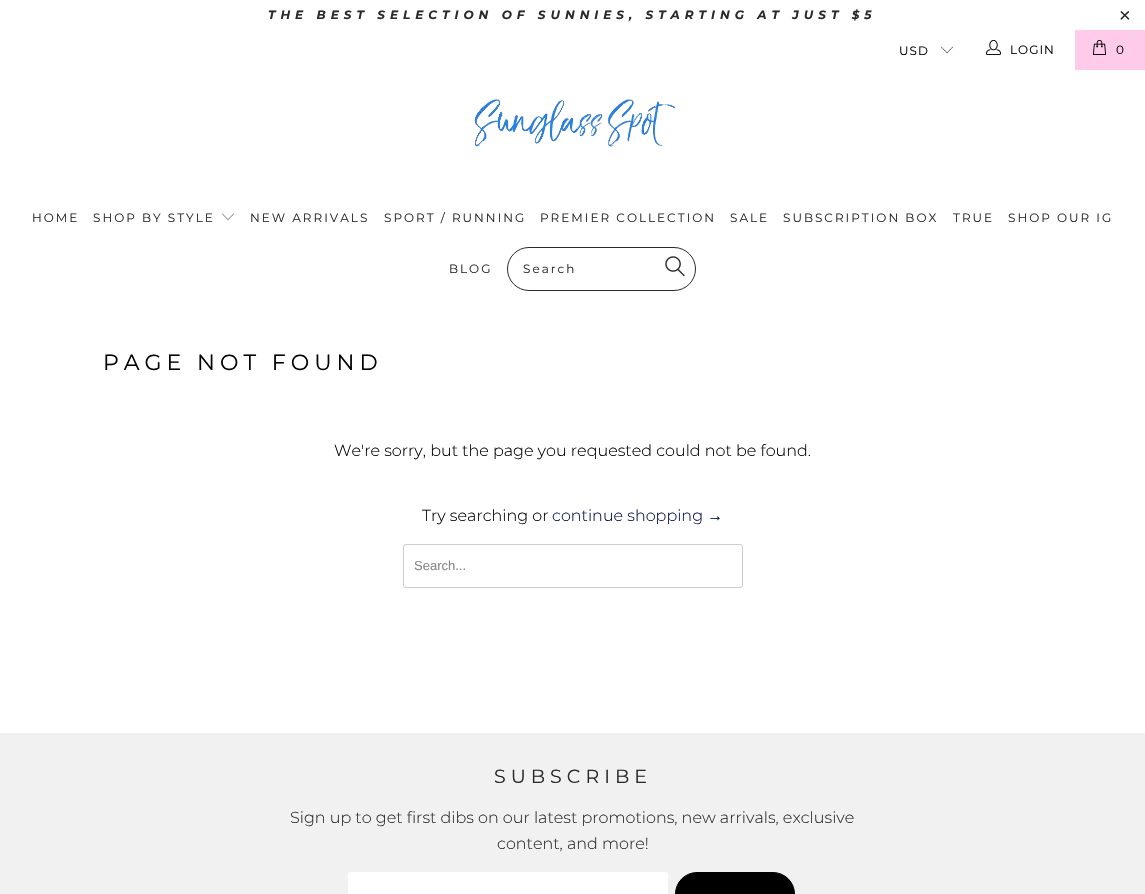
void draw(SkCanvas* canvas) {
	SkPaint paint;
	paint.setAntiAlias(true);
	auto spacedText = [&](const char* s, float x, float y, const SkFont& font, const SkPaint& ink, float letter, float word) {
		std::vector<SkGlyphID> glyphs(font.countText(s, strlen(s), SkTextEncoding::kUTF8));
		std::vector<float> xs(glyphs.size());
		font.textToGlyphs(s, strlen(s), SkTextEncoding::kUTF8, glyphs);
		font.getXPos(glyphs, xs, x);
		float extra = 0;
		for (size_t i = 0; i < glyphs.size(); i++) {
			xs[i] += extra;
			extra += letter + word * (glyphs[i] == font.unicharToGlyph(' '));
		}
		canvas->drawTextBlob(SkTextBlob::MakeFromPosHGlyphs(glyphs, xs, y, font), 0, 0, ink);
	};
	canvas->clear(0xffffffff);
	SkFont f1(fontMgr->matchFamilyStyle("Montserrat", SkFontStyle(100, SkFontStyle::kNormal_Width, SkFontStyle::kItalic_Slant)), 12);
	f1.setSubpixel(true);
	paint.setColor(0xff2b2a2a);
	spacedText("THE BEST SELECTION OF SUNNIES, STARTING AT JUST $5", 268, 19, f1, paint, 5, 0);
	SkFont f2(fontMgr->matchFamilyStyle("Liberation Sans", SkFontStyle::Normal()), 20);
	f2.setSubpixel(true);
	spacedText("×", 1119, 22, f2, paint, 5, 0);
	canvas->drawImageRect(SkImages::DeferredFromEncodedData(SkData::MakeFromFileName("img1.png")), SkRect::MakeXYWH(941, 46, 12, 8), SkSamplingOptions());
	SkFont f3(fontMgr->matchFamilyStyle("Montserrat", SkFontStyle(100, SkFontStyle::kNormal_Width, SkFontStyle::kUpright_Slant)), 12);
	f3.setSubpixel(true);
	paint.setColor(0xff000000);
	spacedText("USD", 899, 55, f3, paint, 1, 0);
	canvas->drawImageRect(SkImages::DeferredFromEncodedData(SkData::MakeFromFileName("img2.png")), SkRect::MakeXYWH(986, 39, 15, 16), SkSamplingOptions());
	spacedText("LOGIN", 1010, 54, f3, paint, 1, 0);
	paint.setColor(0xffffcbeb);
	canvas->drawRect(SkRect::MakeXYWH(1075, 30, 70, 40), paint);
	canvas->drawImageRect(SkImages::DeferredFromEncodedData(SkData::MakeFromFileName("img3.png")), SkRect::MakeXYWH(1092, 40, 15, 15), SkSamplingOptions());
	paint.setColor(0xff000000);
	spacedText("0", 1116, 54, f3, paint, 1, 0);
	canvas->drawImageRect(SkImages::DeferredFromEncodedData(SkData::MakeFromFileName("img4.png")), SkRect::MakeXYWH(474, 99, 201, 48), SkSamplingOptions());
	paint.setColor(0xff2b2a2a);
	spacedText("HOME", 32, 222, f3, paint, 2, 0);
	spacedText("SHOP BY STYLE", 93, 222, f3, paint, 2, 0);
	canvas->drawImageRect(SkImages::DeferredFromEncodedData(SkData::MakeFromFileName("img5.png")), SkRect::MakeXYWH(222, 213, 12, 7), SkSamplingOptions());
	spacedText("NEW ARRIVALS", 250, 222, f3, paint, 2, 0);
	spacedText("SPORT / RUNNING", 384, 222, f3, paint, 2, 0);
	spacedText("PREMIER COLLECTION", 540, 222, f3, paint, 2, 0);
	spacedText("SALE", 730, 222, f3, paint, 2, 0);
	spacedText("SUBSCRIPTION BOX", 783, 222, f3, paint, 2, 0);
	spacedText("TRUE", 953, 222, f3, paint, 2, 0);
	spacedText("SHOP OUR IG", 1008, 222, f3, paint, 2, 0);
	spacedText("BLOG", 449, 273, f3, paint, 2, 0);
	paint.setStroke(true);
	paint.setStrokeWidth(1);
	canvas->drawRoundRect(SkRect::MakeXYWH(507.5, 247.5, 188, 43), 21.5, 21.5, paint);
	paint.setStroke(false);
	spacedText("Search", 523, 273, f3, paint, 2, 0);
	canvas->drawImageRect(SkImages::DeferredFromEncodedData(SkData::MakeFromFileName("img6.png")), SkRect::MakeXYWH(665, 256, 20, 21), SkSamplingOptions());
	SkFont f4(fontMgr->matchFamilyStyle("Montserrat", SkFontStyle(100, SkFontStyle::kNormal_Width, SkFontStyle::kUpright_Slant)), 22);
	f4.setSubpixel(true);
	paint.setColor(0xff000000);
	spacedText("PAGE NOT FOUND", 103, 370, f4, paint, 5, 0);
	SkFont f5(fontMgr->matchFamilyStyle("Montserrat", SkFontStyle(300, SkFontStyle::kNormal_Width, SkFontStyle::kUpright_Slant)), 16);
	f5.setSubpixel(true);
	canvas->drawString("We're sorry, but the page you requested could not be found.", 334, 456, f5, paint);
	canvas->drawString("Try searching or", 422, 521, f5, paint);
	paint.setColor(0xff020f4c);
	canvas->drawString("continue shopping", 552, 521, f5, paint);
	SkFont f6(fontMgr->matchFamilyStyle("Liberation Serif", SkFontStyle::Normal()), 16);
	f6.setSubpixel(true);
	canvas->drawString("→", 707, 521, f6, paint);
	paint.setStroke(true);
	paint.setColor(0xffcccccc);
	canvas->drawRoundRect(SkRect::MakeXYWH(403.5, 544.5, 339, 43), 2.5, 2.5, paint);
	SkFont f7(fontMgr->matchFamilyStyle("Liberation Sans", SkFontStyle::Normal()), 13);
	f7.setSubpixel(true);
	paint.setStroke(false);
	paint.setColor(0xff888888);
	canvas->drawString("Search...", 414, 570, f7, paint);
	paint.setColor(0xfff2f1f1);
	canvas->drawRect(SkRect::MakeXYWH(0, 733, 1145, 161), paint);
	SkFont f8(fontMgr->matchFamilyStyle("Montserrat", SkFontStyle(100, SkFontStyle::kNormal_Width, SkFontStyle::kUpright_Slant)), 19);
	f8.setSubpixel(true);
	paint.setColor(0xff2b2a2a);
	spacedText("SUBSCRIBE", 494, 783, f8, paint, 5, 0);
	canvas->drawString("Sign up to get first dibs on our latest promotions, new arrivals, exclusive", 290, 823, f5, paint);
	canvas->drawString("content, and more!", 497, 849, f5, paint);
	paint.setColor(0xffffffff);
	canvas->drawRoundRect(SkRect::MakeXYWH(348, 872, 320, 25), 3, 3, paint);
	paint.setColor(0xff000000);
	canvas->drawRoundRect(SkRect::MakeXYWH(675.5, 872.5, 119, 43), 21.5, 21.5, paint);
	paint.setStroke(true);
	canvas->drawRoundRect(SkRect::MakeXYWH(675.5, 872.5, 119, 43), 21.5, 21.5, paint);
}
